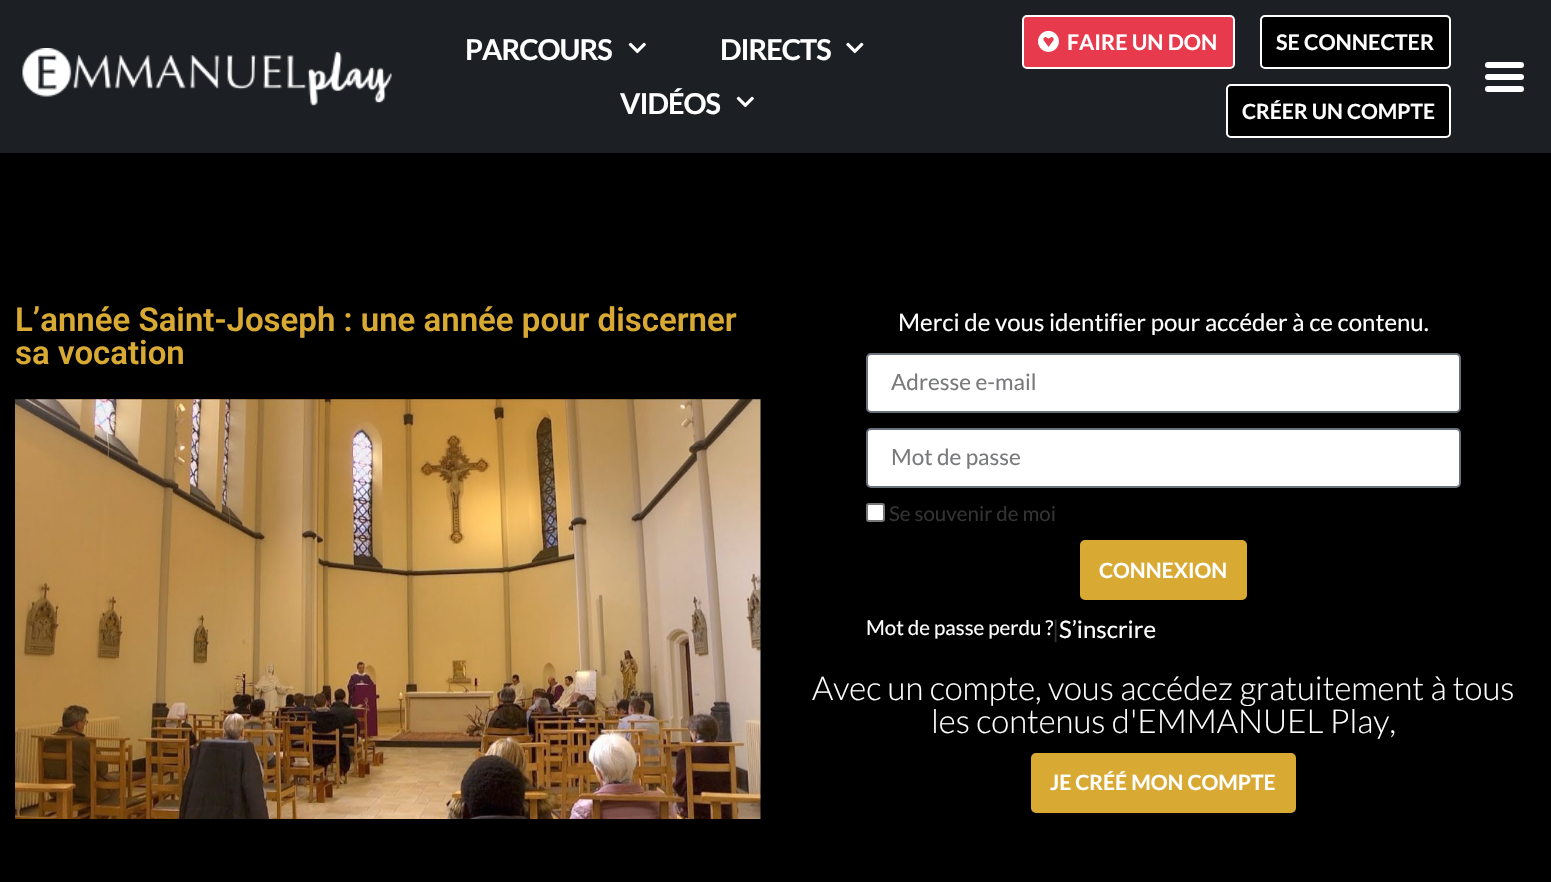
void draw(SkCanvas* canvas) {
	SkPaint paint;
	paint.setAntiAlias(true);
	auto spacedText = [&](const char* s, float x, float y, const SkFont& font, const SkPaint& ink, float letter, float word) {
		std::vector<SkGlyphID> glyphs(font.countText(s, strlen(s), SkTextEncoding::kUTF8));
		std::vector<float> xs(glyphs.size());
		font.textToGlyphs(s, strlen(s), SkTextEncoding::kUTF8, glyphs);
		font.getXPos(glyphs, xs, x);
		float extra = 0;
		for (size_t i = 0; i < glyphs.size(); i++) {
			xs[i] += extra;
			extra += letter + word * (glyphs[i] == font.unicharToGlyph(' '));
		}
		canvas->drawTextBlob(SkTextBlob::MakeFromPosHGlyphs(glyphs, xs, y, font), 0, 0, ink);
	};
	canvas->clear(0xff000000);
	paint.setColor(0xff1c2024);
	canvas->drawRect(SkRect::MakeXYWH(0, 0, 1551, 153), paint);
	canvas->drawImageRect(SkImages::DeferredFromEncodedData(SkData::MakeFromFileName("img1.png")), SkRect::MakeXYWH(22, 48, 370, 58), SkSamplingOptions());
	SkFont f1(fontMgr->matchFamilyStyle("Lato", SkFontStyle::Bold()), 28.75);
	f1.setSubpixel(true);
	paint.setColor(0xffffffff);
	spacedText("PARCOURS", 465, 60, f1, paint, -1, 0);
	canvas->drawImageRect(SkImages::DeferredFromEncodedData(SkData::MakeFromFileName("img2.png")), SkRect::MakeXYWH(628, 42, 18, 12), SkSamplingOptions());
	spacedText("DIRECTS", 720, 60, f1, paint, -1, 0);
	canvas->drawImageRect(SkImages::DeferredFromEncodedData(SkData::MakeFromFileName("img3.png")), SkRect::MakeXYWH(846, 42, 18, 12), SkSamplingOptions());
	spacedText("VIDÉOS", 620, 114, f1, paint, -1, 0);
	canvas->drawImageRect(SkImages::DeferredFromEncodedData(SkData::MakeFromFileName("img2.png")), SkRect::MakeXYWH(736, 96, 18, 12), SkSamplingOptions());
	paint.setColor(0xffe73a4c);
	canvas->drawRoundRect(SkRect::MakeXYWH(1023, 16, 211, 52), 4, 4, paint);
	paint.setStroke(true);
	paint.setStrokeWidth(2);
	paint.setColor(0xffffffff);
	canvas->drawRoundRect(SkRect::MakeXYWH(1023, 16, 211, 52), 4, 4, paint);
	canvas->drawImageRect(SkImages::DeferredFromEncodedData(SkData::MakeFromFileName("img4.png")), SkRect::MakeXYWH(1038, 30, 21, 22), SkSamplingOptions());
	SkFont f2(fontMgr->matchFamilyStyle("Lato", SkFontStyle::Bold()), 21.5);
	f2.setSubpixel(true);
	paint.setStroke(false);
	canvas->drawString("FAIRE UN DON", 1067, 50, f2, paint);
	paint.setColor(0xff000000);
	canvas->drawRoundRect(SkRect::MakeXYWH(1261, 16, 189, 52), 4, 4, paint);
	paint.setStroke(true);
	paint.setColor(0xffffffff);
	canvas->drawRoundRect(SkRect::MakeXYWH(1261, 16, 189, 52), 4, 4, paint);
	paint.setStroke(false);
	canvas->drawString("SE CONNECTER", 1276, 50, f2, paint);
	paint.setColor(0xff000000);
	canvas->drawRoundRect(SkRect::MakeXYWH(1227, 85, 223, 52), 4, 4, paint);
	paint.setStroke(true);
	paint.setColor(0xffffffff);
	canvas->drawRoundRect(SkRect::MakeXYWH(1227, 85, 223, 52), 4, 4, paint);
	SkFont f3(fontMgr->matchFamilyStyle("Lato", SkFontStyle::Bold()), 21);
	f3.setSubpixel(true);
	paint.setStroke(false);
	canvas->drawString("CRÉER UN COMPTE", 1242, 119, f3, paint);
	canvas->drawRoundRect(SkRect::MakeXYWH(1485, 74, 39, 6), 3, 3, paint);
	canvas->drawRoundRect(SkRect::MakeXYWH(1485, 62, 39, 6), 3, 3, paint);
	canvas->drawRoundRect(SkRect::MakeXYWH(1485, 86, 39, 6), 3, 3, paint);
	SkFont f4(fontMgr->matchFamilyStyle("Roboto", SkFontStyle(600, SkFontStyle::kNormal_Width, SkFontStyle::kUpright_Slant)), 33);
	f4.setSubpixel(true);
	paint.setColor(0xffd8a933);
	canvas->drawString("L’année Saint-Joseph : une année pour discerner", 15, 331, f4, paint);
	canvas->drawString("sa vocation", 15, 364, f4, paint);
	canvas->drawImageRect(SkImages::DeferredFromEncodedData(SkData::MakeFromFileName("img5.png")), SkRect::MakeXYWH(15, 399, 746, 420), SkSamplingOptions());
	SkFont f5(fontMgr->matchFamilyStyle("Lato", SkFontStyle::Normal()), 24);
	f5.setSubpixel(true);
	paint.setColor(0xffffffff);
	canvas->drawString("Merci de vous identifier pour accéder à ce contenu.", 898, 331, f5, paint);
	canvas->drawRoundRect(SkRect::MakeXYWH(867, 354, 593, 58), 4, 4, paint);
	paint.setStroke(true);
	paint.setColor(0xff69727d);
	canvas->drawRoundRect(SkRect::MakeXYWH(867, 354, 593, 58), 4, 4, paint);
	SkFont f6(fontMgr->matchFamilyStyle("Lato", SkFontStyle::Normal()), 22.5);
	f6.setSubpixel(true);
	paint.setStroke(false);
	paint.setColor(0xff797a7c);
	canvas->drawString("Adresse e-mail", 891, 390, f6, paint);
	paint.setColor(0xffffffff);
	canvas->drawRoundRect(SkRect::MakeXYWH(867, 429, 593, 58), 4, 4, paint);
	paint.setStroke(true);
	paint.setColor(0xff69727d);
	canvas->drawRoundRect(SkRect::MakeXYWH(867, 429, 593, 58), 4, 4, paint);
	paint.setStroke(false);
	paint.setColor(0xff797a7c);
	canvas->drawString("Mot de passe", 891, 465, f6, paint);
	paint.setColor(0xffffffff);
	canvas->drawRoundRect(SkRect::MakeXYWH(867, 504, 17, 17), 2, 2, paint);
	paint.setStroke(true);
	paint.setColor(0xff767676);
	canvas->drawRoundRect(SkRect::MakeXYWH(867, 504, 17, 17), 2, 2, paint);
	SkFont f7(fontMgr->matchFamilyStyle("Lato", SkFontStyle::Normal()), 20.5);
	f7.setSubpixel(true);
	paint.setStroke(false);
	paint.setColor(0xff333333);
	canvas->drawString("Se souvenir de moi", 889, 521, f7, paint);
	paint.setColor(0xffd8a933);
	canvas->drawRoundRect(SkRect::MakeXYWH(1081, 541, 165, 58), 4, 4, paint);
	paint.setStroke(true);
	canvas->drawRoundRect(SkRect::MakeXYWH(1081, 541, 165, 58), 4, 4, paint);
	paint.setStroke(false);
	paint.setColor(0xffffffff);
	canvas->drawString("CONNEXION", 1099, 578, f3, paint);
	canvas->drawString("Mot de passe perdu ?", 866, 635, f7, paint);
	paint.setColor(0xff333333);
	canvas->drawString("|", 1052, 638, f5, paint);
	paint.setColor(0xffffffff);
	canvas->drawString("S’inscrire", 1059, 638, f5, paint);
	SkFont f8(fontMgr->matchFamilyStyle("Lato", SkFontStyle(300, SkFontStyle::kNormal_Width, SkFontStyle::kUpright_Slant)), 33);
	f8.setSubpixel(true);
	canvas->drawString("Avec un compte, vous accédez gratuitement à tous", 812, 700, f8, paint);
	canvas->drawString("les contenus d'EMMANUEL Play,", 931, 733, f8, paint);
	paint.setColor(0xffd8a933);
	canvas->drawRoundRect(SkRect::MakeXYWH(1032, 754, 263, 58), 4, 4, paint);
	paint.setStroke(true);
	canvas->drawRoundRect(SkRect::MakeXYWH(1032, 754, 263, 58), 4, 4, paint);
	paint.setStroke(false);
	paint.setColor(0xffffffff);
	canvas->drawString("JE CRÉÉ MON COMPTE", 1050, 790, f3, paint);
}
